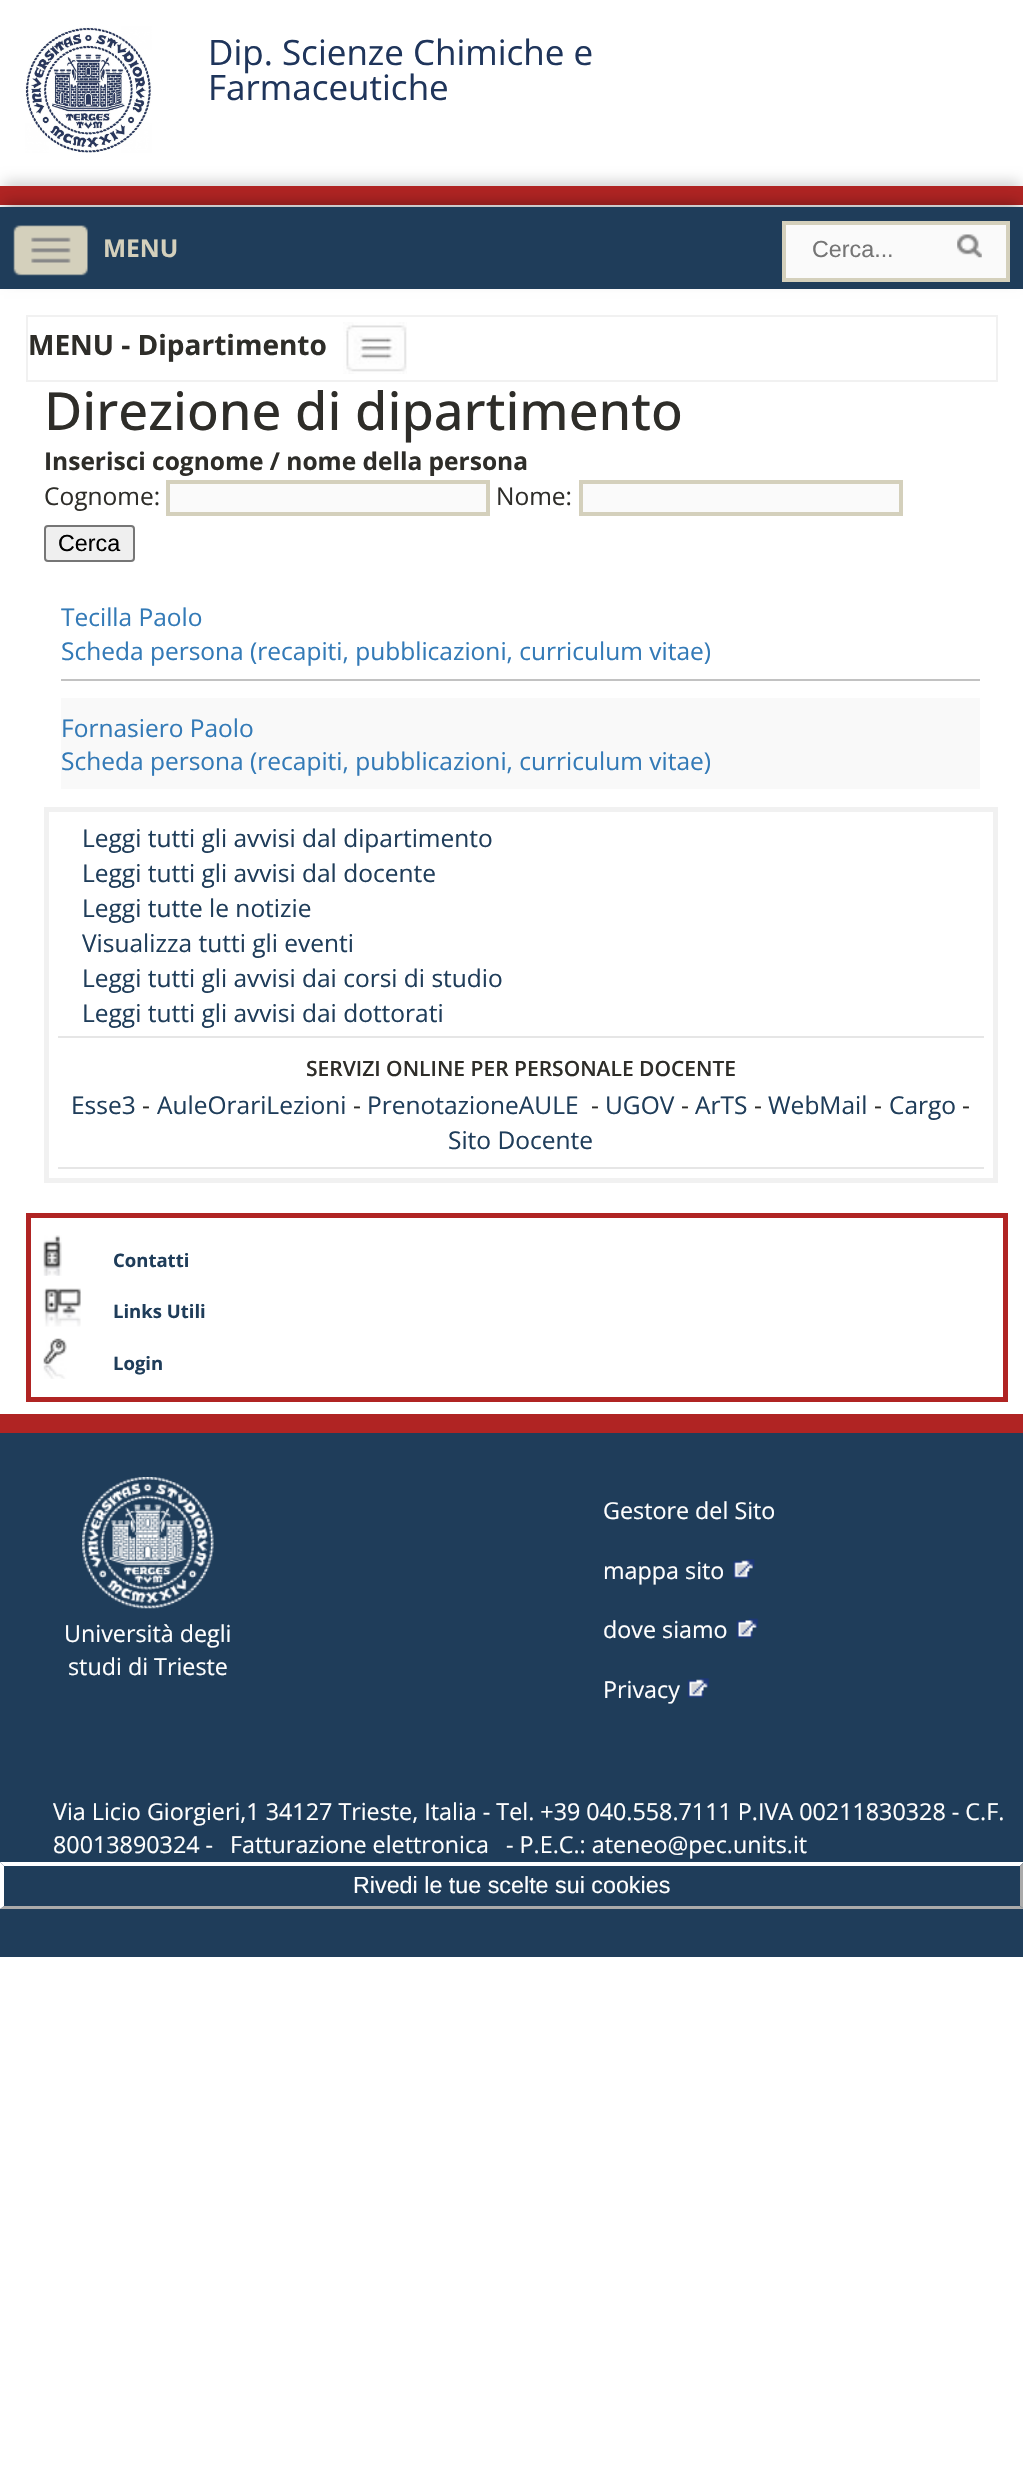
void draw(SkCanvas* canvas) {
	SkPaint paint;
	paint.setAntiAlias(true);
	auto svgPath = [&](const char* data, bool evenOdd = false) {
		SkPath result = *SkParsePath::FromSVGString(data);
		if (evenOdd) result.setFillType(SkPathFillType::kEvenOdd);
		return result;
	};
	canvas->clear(0xffffffff);
	canvas->drawImageRect(SkImages::DeferredFromEncodedData(SkData::MakeFromFileName("img1.png")), SkRect::MakeXYWH(25, 26, 127, 127), SkSamplingOptions());
	SkFont f1(fontMgr->matchFamilyStyle("Open Sans", SkFontStyle::Normal()), 35);
	f1.setSubpixel(true);
	paint.setColor(0xff1f355b);
	canvas->drawString("Dip. Scienze Chimiche e", 208, 65, f1, paint);
	canvas->drawString("Farmaceutiche", 208, 100, f1, paint);
	paint.setColor(0x33000000);
	paint.setMaskFilter(SkMaskFilter::MakeBlur(kNormal_SkBlurStyle, 7));
	canvas->drawRect(SkRect::MakeXYWH(4, 182, 1016, 12), paint);
	paint.setMaskFilter(nullptr);
	paint.setColor(0xffb02423);
	canvas->drawRect(SkRect::MakeXYWH(0, 186, 1023, 19), paint);
	paint.setColor(0x4d000000);
	paint.setMaskFilter(SkMaskFilter::MakeBlur(kNormal_SkBlurStyle, 7));
	canvas->drawRect(SkRect::MakeXYWH(4, 203, 1016, 75), paint);
	paint.setMaskFilter(nullptr);
	paint.setColor(0xff1f3d5a);
	canvas->drawRect(SkRect::MakeXYWH(0, 207, 1023, 82), paint);
	canvas->drawImageRect(SkImages::DeferredFromEncodedData(SkData::MakeFromFileName("img2.png")), SkRect::MakeXYWH(13, 225, 75, 51), SkSamplingOptions());
	SkFont f2(fontMgr->matchFamilyStyle("Open Sans", SkFontStyle::Bold()), 24.5);
	f2.setSubpixel(true);
	paint.setColor(0xffd4d0bc);
	canvas->drawString("MENU", 103, 257, f2, paint);
	paint.setColor(0xfffafafa);
	canvas->drawRect(SkRect::MakeXYWH(784, 223, 224, 57), paint);
	paint.setStroke(true);
	paint.setStrokeWidth(4);
	paint.setColor(0xffd4d0bc);
	canvas->drawRect(SkRect::MakeXYWH(784, 223, 224, 57), paint);
	SkFont f3(fontMgr->matchFamilyStyle("Liberation Sans", SkFontStyle::Normal()), 23.3);
	f3.setSubpixel(true);
	paint.setStroke(false);
	paint.setColor(0xff757575);
	canvas->drawString("Cerca...", 812, 257, f3, paint);
	canvas->drawImageRect(SkImages::DeferredFromEncodedData(SkData::MakeFromFileName("img3.png")), SkRect::MakeXYWH(957, 234, 25, 24), SkSamplingOptions());
	paint.setStroke(true);
	paint.setStrokeWidth(2);
	paint.setColor(0xfff1f1f1);
	canvas->drawRect(SkRect::MakeXYWH(27, 316, 970, 65), paint);
	SkFont f4(fontMgr->matchFamilyStyle("Open Sans", SkFontStyle::Bold()), 28);
	f4.setSubpixel(true);
	paint.setStroke(false);
	paint.setColor(0xff2e2d29);
	canvas->drawString("MENU - Dipartimento", 28, 355, f4, paint);
	canvas->drawImageRect(SkImages::DeferredFromEncodedData(SkData::MakeFromFileName("img4.png")), SkRect::MakeXYWH(343, 322, 64, 52), SkSamplingOptions());
	SkFont f5(fontMgr->matchFamilyStyle("Open Sans", SkFontStyle(500, SkFontStyle::kNormal_Width, SkFontStyle::kUpright_Slant)), 52.5);
	f5.setSubpixel(true);
	canvas->drawString("Direzione di dipartimento", 44, 430, f5, paint);
	canvas->drawString("Inserisci cognome / nome della persona", 44, 470, f2, paint);
	SkFont f6(fontMgr->matchFamilyStyle("Open Sans", SkFontStyle::Normal()), 24.5);
	f6.setSubpixel(true);
	canvas->drawString("Cognome:", 44, 505, f6, paint);
	paint.setColor(0xfffafafa);
	canvas->drawRect(SkRect::MakeXYWH(168, 482, 320, 32), paint);
	paint.setStroke(true);
	paint.setStrokeWidth(4);
	paint.setColor(0xffd4d0bc);
	canvas->drawRect(SkRect::MakeXYWH(168, 482, 320, 32), paint);
	paint.setStroke(false);
	paint.setColor(0xff2e2d29);
	canvas->drawString("Nome:", 496, 505, f6, paint);
	paint.setColor(0xfffafafa);
	canvas->drawRect(SkRect::MakeXYWH(581, 482, 320, 32), paint);
	paint.setStroke(true);
	paint.setColor(0xffd4d0bc);
	canvas->drawRect(SkRect::MakeXYWH(581, 482, 320, 32), paint);
	paint.setStroke(false);
	paint.setColor(0xffefefef);
	canvas->drawRoundRect(SkRect::MakeXYWH(45, 526, 89, 35), 3, 3, paint);
	paint.setStroke(true);
	paint.setStrokeWidth(2);
	paint.setColor(0xff767676);
	canvas->drawRoundRect(SkRect::MakeXYWH(45, 526, 89, 35), 3, 3, paint);
	paint.setStroke(false);
	paint.setColor(0xff000000);
	canvas->drawString("Cerca", 58, 551, f3, paint);
	paint.setColor(0xffc2c2c2);
	canvas->drawRect(SkRect::MakeXYWH(61, 679, 919, 2), paint);
	paint.setColor(0xff337ab7);
	canvas->drawString("Tecilla Paolo", 61, 626, f6, paint);
	canvas->drawString("Scheda persona (recapiti, pubblicazioni, curriculum vitae)", 61, 660, f6, paint);
	paint.setColor(0xfff9f9f9);
	canvas->drawRect(SkRect::MakeXYWH(61, 698, 919, 91), paint);
	paint.setColor(0xff337ab7);
	canvas->drawString("Fornasiero Paolo", 61, 737, f6, paint);
	canvas->drawString("Scheda persona (recapiti, pubblicazioni, curriculum vitae)", 61, 770, f6, paint);
	paint.setStroke(true);
	paint.setStrokeWidth(5);
	paint.setColor(0xfff1f1f1);
	canvas->drawRect(SkRect::MakeXYWH(46.5, 809.5, 949, 371), paint);
	paint.setStroke(false);
	paint.setColor(0xffe6e6e6);
	canvas->drawRect(SkRect::MakeXYWH(58, 1036, 926, 2), paint);
	paint.setColor(0xff1f3d5a);
	canvas->drawString("Leggi tutti gli avvisi dal dipartimento", 82, 847, f6, paint);
	canvas->drawString("Leggi tutti gli avvisi dal docente", 82, 882, f6, paint);
	canvas->drawString("Leggi tutte le notizie", 82, 917, f6, paint);
	canvas->drawString("Visualizza tutti gli eventi", 82, 952, f6, paint);
	canvas->drawString("Leggi tutti gli avvisi dai corsi di studio", 82, 987, f6, paint);
	canvas->drawString("Leggi tutti gli avvisi dai dottorati", 82, 1022, f6, paint);
	paint.setColor(0xffe6e6e6);
	canvas->drawRect(SkRect::MakeXYWH(58, 1167, 926, 2), paint);
	SkFont f7(fontMgr->matchFamilyStyle("Open Sans", SkFontStyle(600, SkFontStyle::kNormal_Width, SkFontStyle::kUpright_Slant)), 21);
	f7.setSubpixel(true);
	paint.setColor(0xff2e2d29);
	canvas->drawString("SERVIZI ONLINE PER PERSONALE DOCENTE", 306, 1076, f7, paint);
	paint.setColor(0xff1f3d5a);
	canvas->drawString("Esse3", 71, 1114, f6, paint);
	paint.setColor(0xff2e2d29);
	canvas->drawString("-", 142, 1114, f6, paint);
	paint.setColor(0xff1f3d5a);
	canvas->drawString("AuleOrariLezioni", 157, 1114, f6, paint);
	paint.setColor(0xff2e2d29);
	canvas->drawString("-", 353, 1114, f6, paint);
	paint.setColor(0xff1f3d5a);
	canvas->drawString("PrenotazioneAULE", 367, 1114, f6, paint);
	paint.setColor(0xff2e2d29);
	canvas->drawString("-", 591, 1114, f6, paint);
	paint.setColor(0xff1f3d5a);
	canvas->drawString("UGOV", 605, 1114, f6, paint);
	paint.setColor(0xff2e2d29);
	canvas->drawString("-", 681, 1114, f6, paint);
	paint.setColor(0xff1f3d5a);
	canvas->drawString("ArTS", 695, 1114, f6, paint);
	paint.setColor(0xff2e2d29);
	canvas->drawString("-", 754, 1114, f6, paint);
	paint.setColor(0xff1f3d5a);
	canvas->drawString("WebMail", 768, 1114, f6, paint);
	paint.setColor(0xff2e2d29);
	canvas->drawString("-", 874, 1114, f6, paint);
	paint.setColor(0xff1f3d5a);
	canvas->drawString("Cargo", 889, 1114, f6, paint);
	paint.setColor(0xff2e2d29);
	canvas->drawString("-", 962, 1114, f6, paint);
	paint.setColor(0xff1f3d5a);
	canvas->drawString("Sito Docente", 448, 1149, f6, paint);
	paint.setStroke(true);
	paint.setColor(0xffb02423);
	canvas->drawRect(SkRect::MakeXYWH(28.5, 1215.5, 977, 184), paint);
	canvas->drawImageRect(SkImages::DeferredFromEncodedData(SkData::MakeFromFileName("img5.png")), SkRect::MakeXYWH(43, 1235, 19, 41), SkSamplingOptions());
	SkFont f8(fontMgr->matchFamilyStyle("Open Sans", SkFontStyle::Bold()), 18.5);
	f8.setSubpixel(true);
	paint.setStroke(false);
	paint.setColor(0xff1f3d5a);
	canvas->drawString("Contatti", 113, 1267, f8, paint);
	canvas->drawImageRect(SkImages::DeferredFromEncodedData(SkData::MakeFromFileName("img6.png")), SkRect::MakeXYWH(43, 1288, 38, 39), SkSamplingOptions());
	canvas->drawString("Links Utili", 113, 1318, f8, paint);
	canvas->drawImageRect(SkImages::DeferredFromEncodedData(SkData::MakeFromFileName("img7.png")), SkRect::MakeXYWH(43, 1338, 24, 41), SkSamplingOptions());
	canvas->drawString("Login", 113, 1370, f8, paint);
	canvas->drawRect(SkRect::MakeXYWH(0, 1433, 1023, 524), paint);
	paint.setColor(0xffb02423);
	canvas->drawRect(SkRect::MakeXYWH(0, 1414, 1023, 19), paint);
	canvas->drawImageRect(SkImages::DeferredFromEncodedData(SkData::MakeFromFileName("img8.png")), SkRect::MakeXYWH(82, 1477, 132, 132), SkSamplingOptions());
	SkFont f9(fontMgr->matchFamilyStyle("Open Sans", SkFontStyle::Normal()), 23.3);
	f9.setSubpixel(true);
	paint.setColor(0xffffffff);
	canvas->drawString("Università degli", 64, 1642, f9, paint);
	canvas->drawString("studi di Trieste", 68, 1675, f9, paint);
	canvas->drawString("Gestore del Sito", 603, 1519, f9, paint);
	canvas->drawString("mappa sito", 603, 1579, f9, paint);
	canvas->drawImageRect(SkImages::DeferredFromEncodedData(SkData::MakeFromFileName("img9.png")), SkRect::MakeXYWH(733, 1559, 22, 20), SkSamplingOptions());
	canvas->drawString("dove siamo", 603, 1638, f9, paint);
	canvas->drawImageRect(SkImages::DeferredFromEncodedData(SkData::MakeFromFileName("img10.png")), SkRect::MakeXYWH(736, 1618, 23, 21), SkSamplingOptions());
	canvas->drawString("Privacy", 603, 1698, f9, paint);
	canvas->drawImageRect(SkImages::DeferredFromEncodedData(SkData::MakeFromFileName("img11.png")), SkRect::MakeXYWH(687, 1678, 23, 20), SkSamplingOptions());
	canvas->drawString("Via Licio Giorgieri,1 34127 Trieste, Italia - Tel. +39 040.558.7111 P.IVA 00211830328 - C.F.", 53, 1820, f9, paint);
	canvas->drawString("80013890324 -", 53, 1853, f9, paint);
	canvas->drawString("Fatturazione elettronica", 230, 1853, f9, paint);
	canvas->drawString("- P.E.C.: ateneo@pec.units.it", 506, 1853, f9, paint);
	canvas->drawPath(svgPath("M0 1862H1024L1020 1866H4Z"), paint);
	paint.setColor(0xffaaaaaa);
	canvas->drawPath(svgPath("M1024 1862V1909L1020 1906V1866Z"), paint);
	canvas->drawPath(svgPath("M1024 1909H0L4 1906H1020Z"), paint);
	paint.setColor(0xffffffff);
	canvas->drawPath(svgPath("M0 1909V1862L4 1866V1906Z"), paint);
	canvas->drawString("Rivedi le tue scelte sui cookies", 353, 1893, f3, paint);
}
